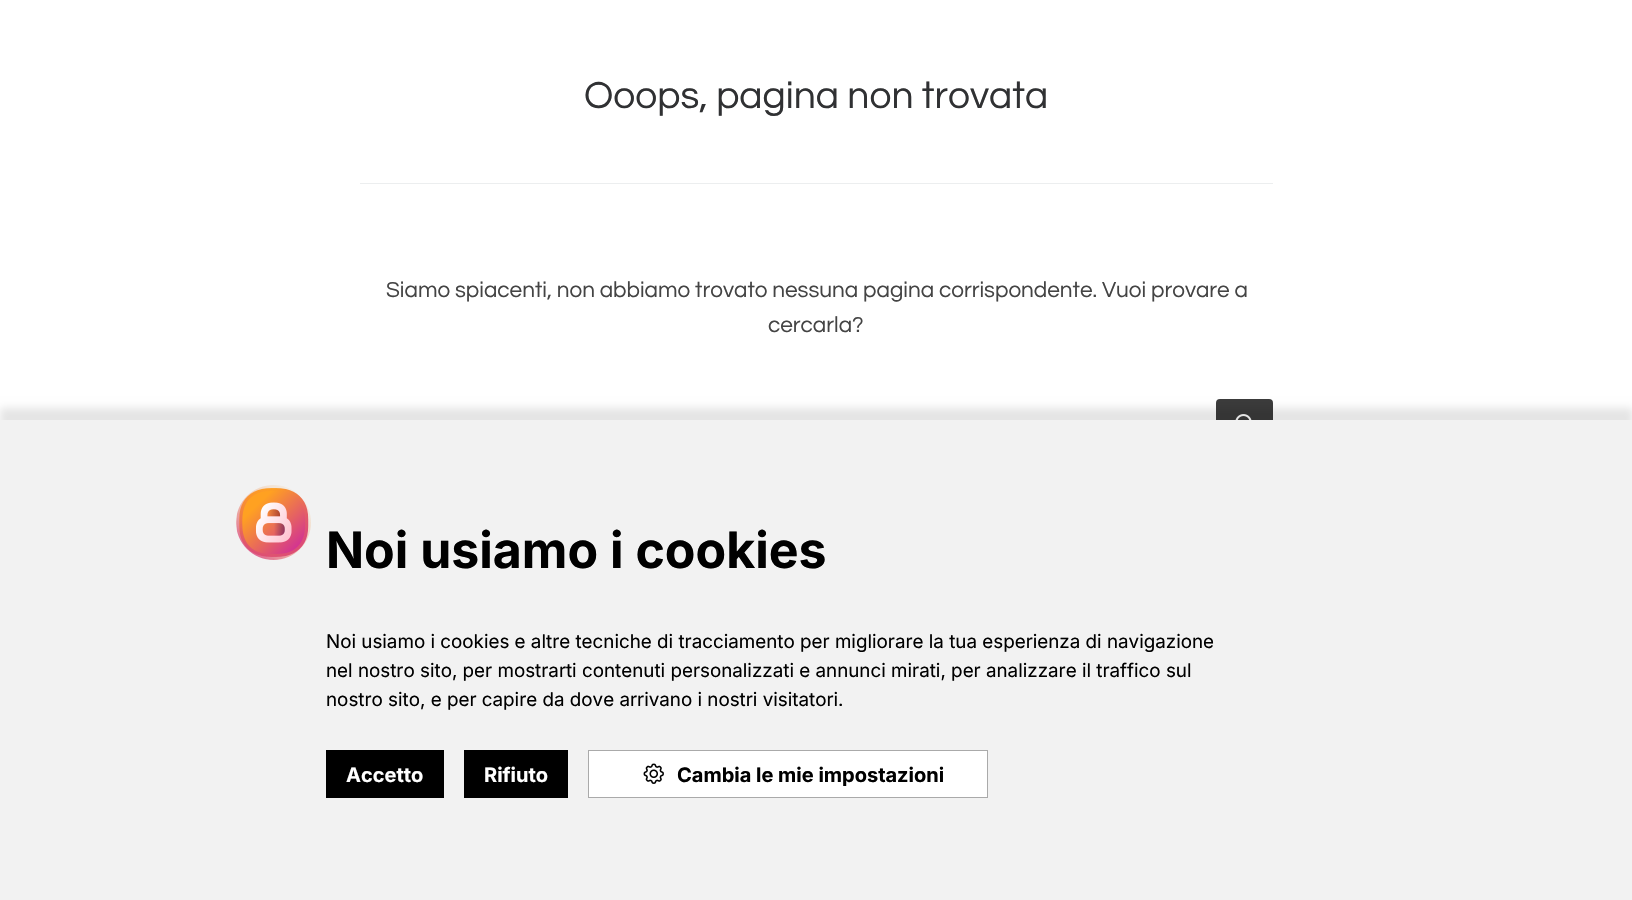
void draw(SkCanvas* canvas) {
	SkPaint paint;
	paint.setAntiAlias(true);
	canvas->clear(0xffffffff);
	SkFont f1(fontMgr->matchFamilyStyle("Questrial", SkFontStyle::Normal()), 39);
	f1.setSubpixel(true);
	paint.setColor(0xff303133);
	canvas->drawString("Ooops, pagina non trovata", 584, 108, f1, paint);
	paint.setColor(0xffeceeef);
	canvas->drawRect(SkRect::MakeXYWH(360, 183, 913, 1), paint);
	SkFont f2(fontMgr->matchFamilyStyle("Questrial", SkFontStyle::Normal()), 22.55);
	f2.setSubpixel(true);
	paint.setColor(0xff444444);
	canvas->drawString("Siamo spiacenti, non abbiamo trovato nessuna pagina corrispondente. Vuoi provare a", 386, 297, f2, paint);
	canvas->drawString("cercarla?", 768, 332, f2, paint);
	paint.setColor(0xff3b3b3b);
	canvas->drawRoundRect(SkRect::MakeXYWH(1217.5, 400.5, 54, 41), 2.5, 2.5, paint);
	paint.setStroke(true);
	paint.setStrokeWidth(3);
	canvas->drawRoundRect(SkRect::MakeXYWH(1217.5, 400.5, 54, 41), 2.5, 2.5, paint);
	canvas->drawImageRect(SkImages::DeferredFromEncodedData(SkData::MakeFromFileName("img1.png")), SkRect::MakeXYWH(1235, 414, 17, 6), SkSamplingOptions());
	paint.setStroke(false);
	paint.setColor(0x1a000000);
	paint.setMaskFilter(SkMaskFilter::MakeBlur(kNormal_SkBlurStyle, 4));
	canvas->drawRect(SkRect::MakeXYWH(0, 408, 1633, 480), paint);
	paint.setMaskFilter(nullptr);
	paint.setColor(0xfff2f2f2);
	canvas->drawRect(SkRect::MakeXYWH(0, 420, 1632, 480), paint);
	canvas->drawImageRect(SkImages::DeferredFromEncodedData(SkData::MakeFromFileName("img2.png")), SkRect::MakeXYWH(236, 485, 75, 75), SkSamplingOptions());
	SkFont f3(fontMgr->matchFamilyStyle("Inter", SkFontStyle::Bold()), 50);
	f3.setSubpixel(true);
	paint.setColor(0xff000000);
	canvas->drawString("Noi usiamo i cookies", 326, 568, f3, paint);
	SkFont f4(fontMgr->matchFamilyStyle("Inter", SkFontStyle::Normal()), 18.8);
	f4.setSubpixel(true);
	canvas->drawString("Noi usiamo i cookies e altre tecniche di tracciamento per migliorare la tua esperienza di navigazione", 326, 648, f4, paint);
	canvas->drawString("nel nostro sito, per mostrarti contenuti personalizzati e annunci mirati, per analizzare il traffico sul", 326, 677, f4, paint);
	canvas->drawString("nostro sito, e per capire da dove arrivano i nostri visitatori.", 326, 706, f4, paint);
	canvas->drawRect(SkRect::MakeXYWH(326, 750, 118, 48), paint);
	SkFont f5(fontMgr->matchFamilyStyle("Inter", SkFontStyle::Bold()), 20);
	f5.setSubpixel(true);
	paint.setColor(0xffffffff);
	canvas->drawString("Accetto", 346, 782, f5, paint);
	paint.setColor(0xff000000);
	canvas->drawRect(SkRect::MakeXYWH(464, 750, 104, 48), paint);
	paint.setColor(0xffffffff);
	canvas->drawString("Rifiuto", 484, 782, f5, paint);
	canvas->drawRect(SkRect::MakeXYWH(588.5, 750.5, 399, 47), paint);
	paint.setStroke(true);
	paint.setStrokeWidth(1);
	paint.setColor(0xffaaaaaa);
	canvas->drawRect(SkRect::MakeXYWH(588.5, 750.5, 399, 47), paint);
	canvas->drawImageRect(SkImages::DeferredFromEncodedData(SkData::MakeFromFileName("img3.png")), SkRect::MakeXYWH(643, 763, 21, 21), SkSamplingOptions());
	paint.setStroke(false);
	paint.setColor(0xff000000);
	canvas->drawString("Cambia le mie impostazioni", 677, 782, f5, paint);
}
